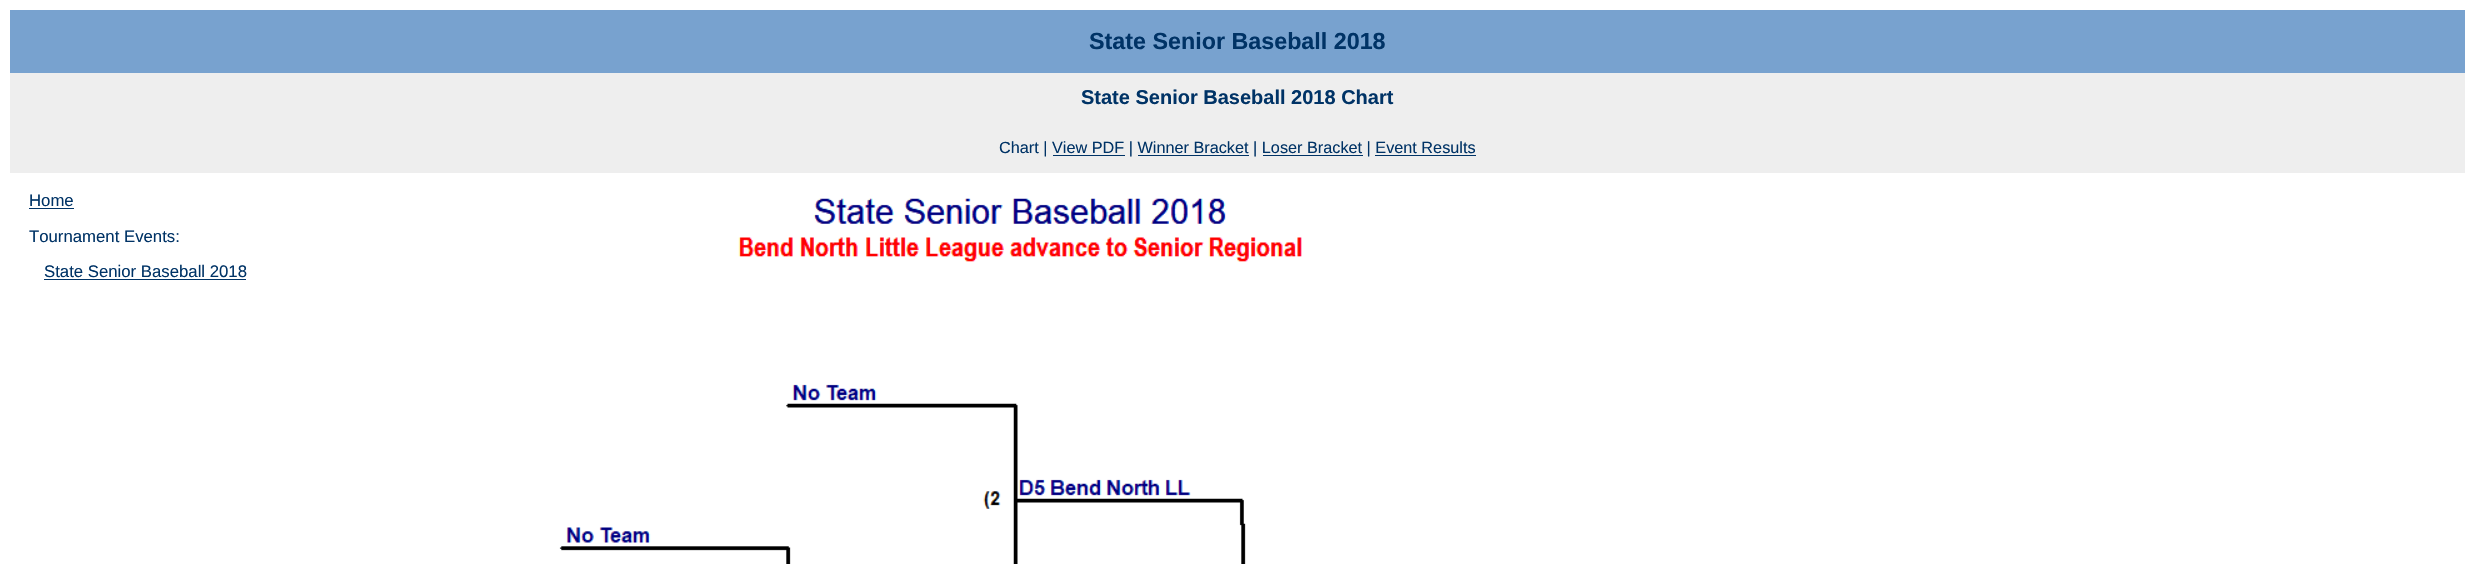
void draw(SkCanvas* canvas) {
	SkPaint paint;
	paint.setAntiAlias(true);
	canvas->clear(0xffffffff);
	paint.setColor(0xff78a2cf);
	canvas->drawRect(SkRect::MakeXYWH(10, 10, 2455, 63), paint);
	SkFont f1(fontMgr->matchFamilyStyle("Liberation Sans", SkFontStyle::Bold()), 23.3);
	f1.setSubpixel(true);
	paint.setColor(0xff003366);
	canvas->drawString("State Senior Baseball 2018", 1089, 49, f1, paint);
	paint.setColor(0xffeeeeee);
	canvas->drawRect(SkRect::MakeXYWH(10, 73, 2455, 100), paint);
	SkFont f2(fontMgr->matchFamilyStyle("Liberation Sans", SkFontStyle::Bold()), 20);
	f2.setSubpixel(true);
	paint.setColor(0xff003366);
	canvas->drawString("State Senior Baseball 2018 Chart", 1081, 104, f2, paint);
	SkFont f3(fontMgr->matchFamilyStyle("Liberation Sans", SkFontStyle::Normal()), 16.25);
	f3.setSubpixel(true);
	canvas->drawString("Chart | View PDF | Winner Bracket | Loser Bracket | Event Results", 999, 153, f3, paint);
	canvas->drawRect(SkRect::MakeXYWH(1053, 155, 72, 1), paint);
	canvas->drawRect(SkRect::MakeXYWH(1138, 155, 111, 1), paint);
	canvas->drawRect(SkRect::MakeXYWH(1263, 155, 100, 1), paint);
	canvas->drawRect(SkRect::MakeXYWH(1375, 155, 101, 1), paint);
	SkFont f4(fontMgr->matchFamilyStyle("Liberation Sans", SkFontStyle::Normal()), 16.75);
	f4.setSubpixel(true);
	canvas->drawString("Home", 29, 206, f4, paint);
	canvas->drawRect(SkRect::MakeXYWH(29, 208, 45, 1), paint);
	canvas->drawString("Tournament Events:", 29, 242, f4, paint);
	canvas->drawString("State Senior Baseball 2018", 44, 277, f4, paint);
	canvas->drawRect(SkRect::MakeXYWH(44, 279, 202, 1), paint);
	canvas->drawImageRect(SkImages::DeferredFromEncodedData(SkData::MakeFromFileName("img1.png")), SkRect::MakeXYWH(559, 198, 743, 366), SkSamplingOptions());
}
